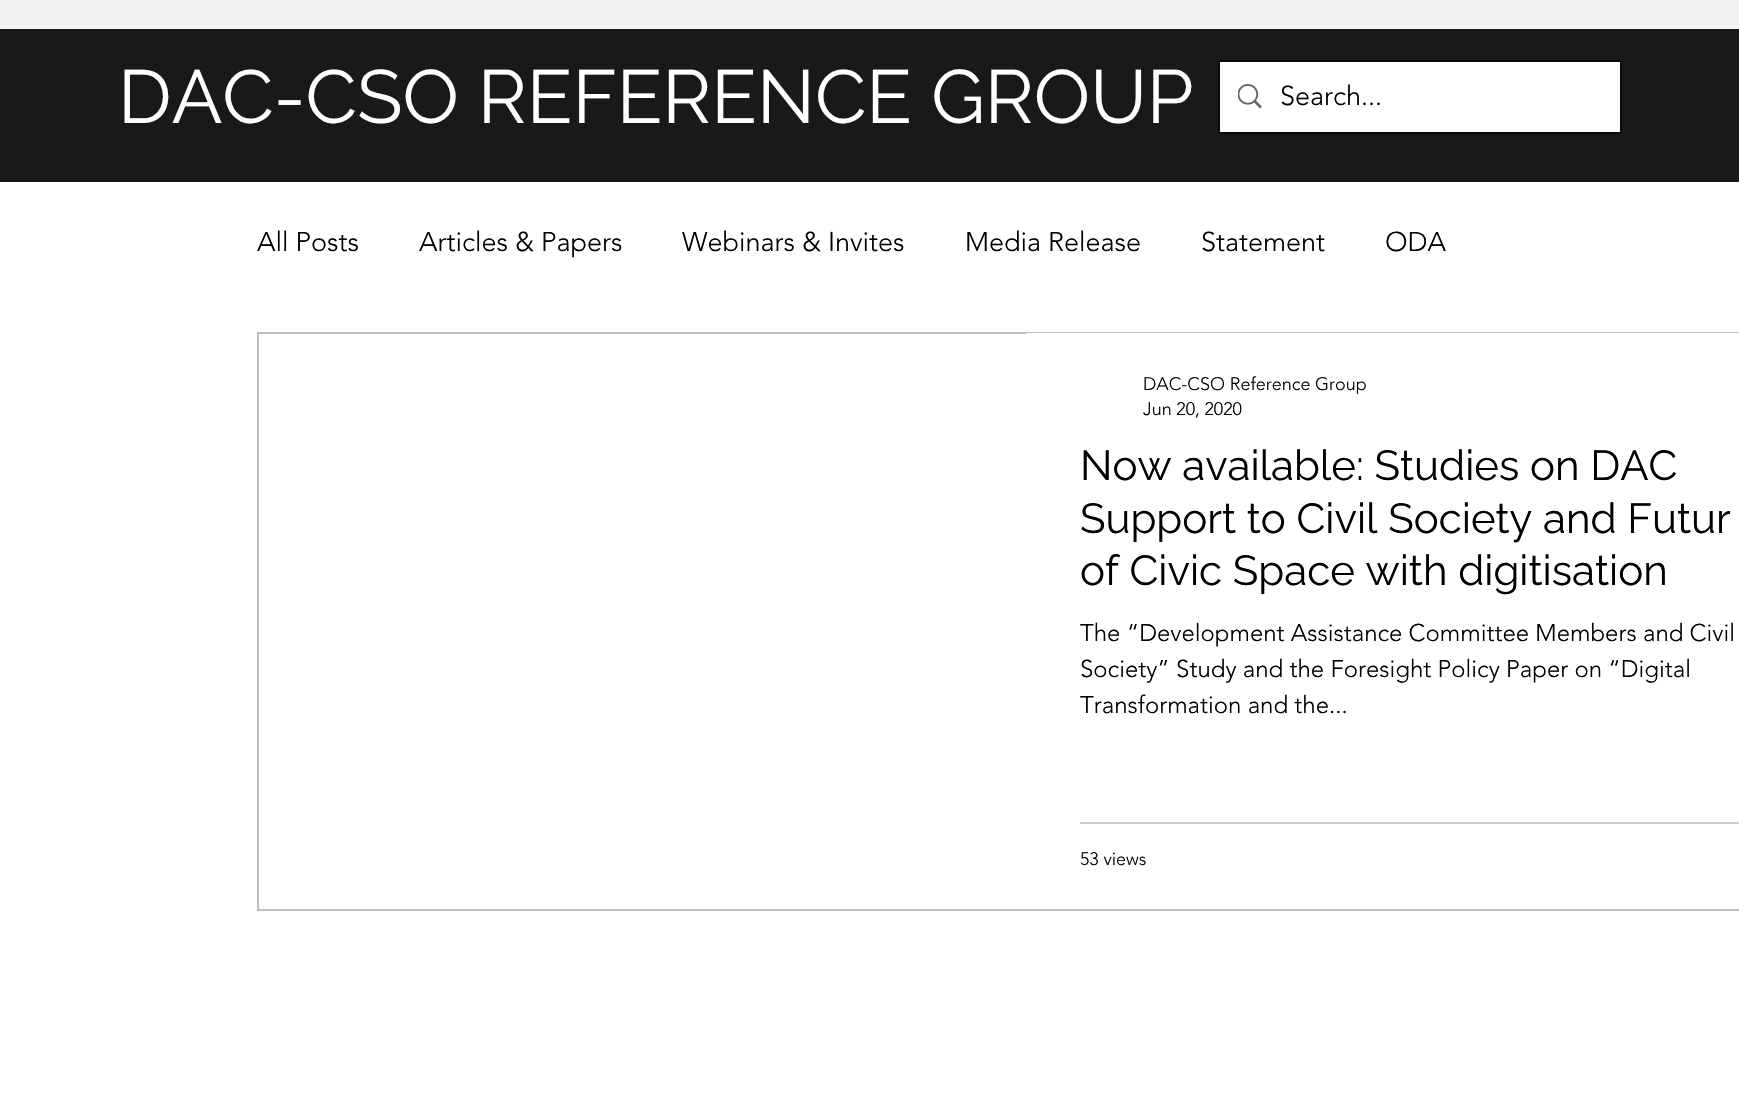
void draw(SkCanvas* canvas) {
	SkPaint paint;
	paint.setAntiAlias(true);
	canvas->clear(0xffffffff);
	paint.setColor(0xff191919);
	canvas->drawRect(SkRect::MakeXYWH(0, 29, 1739, 153), paint);
	paint.setColor(0xfff1f1f1);
	canvas->drawRect(SkRect::MakeXYWH(0, 0, 1739, 29), paint);
	SkFont f1(fontMgr->matchFamilyStyle("Raleway", SkFontStyle::Normal()), 75);
	f1.setSubpixel(true);
	paint.setColor(0xffffffff);
	canvas->drawString("DAC-CSO REFERENCE GROUP", 118, 123, f1, paint);
	paint.setStroke(true);
	paint.setStrokeWidth(2);
	paint.setColor(0xff0a0a0a);
	canvas->drawRect(SkRect::MakeXYWH(1219, 61, 402, 72), paint);
	paint.setStroke(false);
	paint.setColor(0xffffffff);
	canvas->drawRect(SkRect::MakeXYWH(1220, 62, 400, 70), paint);
	canvas->drawImageRect(SkImages::DeferredFromEncodedData(SkData::MakeFromFileName("img1.png")), SkRect::MakeXYWH(1238, 84, 24, 25), SkSamplingOptions());
	SkFont f2(fontMgr->matchFamilyStyle("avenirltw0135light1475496", SkFontStyle(300, SkFontStyle::kNormal_Width, SkFontStyle::kUpright_Slant)), 27);
	f2.setSubpixel(true);
	paint.setColor(0xff000000);
	canvas->drawString("Search...", 1280, 105, f2, paint);
	canvas->drawString("All Posts", 257, 251, f2, paint);
	canvas->drawString("Articles & Papers", 419, 251, f2, paint);
	canvas->drawString("Webinars & Invites", 682, 251, f2, paint);
	canvas->drawString("Media Release", 965, 251, f2, paint);
	canvas->drawString("Statement", 1201, 251, f2, paint);
	canvas->drawString("ODA", 1385, 251, f2, paint);
	paint.setStroke(true);
	paint.setColor(0xffbfbfbf);
	canvas->drawRect(SkRect::MakeXYWH(258, 333, 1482, 577), paint);
	paint.setStroke(false);
	paint.setColor(0xffffffff);
	canvas->drawRect(SkRect::MakeXYWH(1026, 333, 713, 1), paint);
	SkFont f3(fontMgr->matchFamilyStyle("avenirltw0135light1475496", SkFontStyle(300, SkFontStyle::kNormal_Width, SkFontStyle::kUpright_Slant)), 18);
	f3.setSubpixel(true);
	paint.setColor(0xff000000);
	canvas->drawString("DAC-CSO Reference Group", 1143, 390, f3, paint);
	canvas->drawString("Jun 20, 2020", 1143, 415, f3, paint);
	SkFont f4(fontMgr->matchFamilyStyle("Raleway", SkFontStyle::Normal()), 42);
	f4.setSubpixel(true);
	canvas->drawString("Now available: Studies on DAC", 1080, 480, f4, paint);
	canvas->drawString("Support to Civil Society and Futur", 1080, 533, f4, paint);
	canvas->drawString("of Civic Space with digitisation", 1080, 585, f4, paint);
	SkFont f5(fontMgr->matchFamilyStyle("avenirltw0135light1475496", SkFontStyle(300, SkFontStyle::kNormal_Width, SkFontStyle::kUpright_Slant)), 24);
	f5.setSubpixel(true);
	canvas->drawString("The “Development Assistance Committee Members and Civil", 1080, 641, f5, paint);
	canvas->drawString("Society” Study and the Foresight Policy Paper on “Digital", 1080, 677, f5, paint);
	canvas->drawString("Transformation and the...", 1080, 713, f5, paint);
	paint.setColor(0xffcccccc);
	canvas->drawRect(SkRect::MakeXYWH(1080, 822, 659, 2), paint);
	paint.setColor(0xff000000);
	canvas->drawString("53 views", 1080, 865, f3, paint);
}
